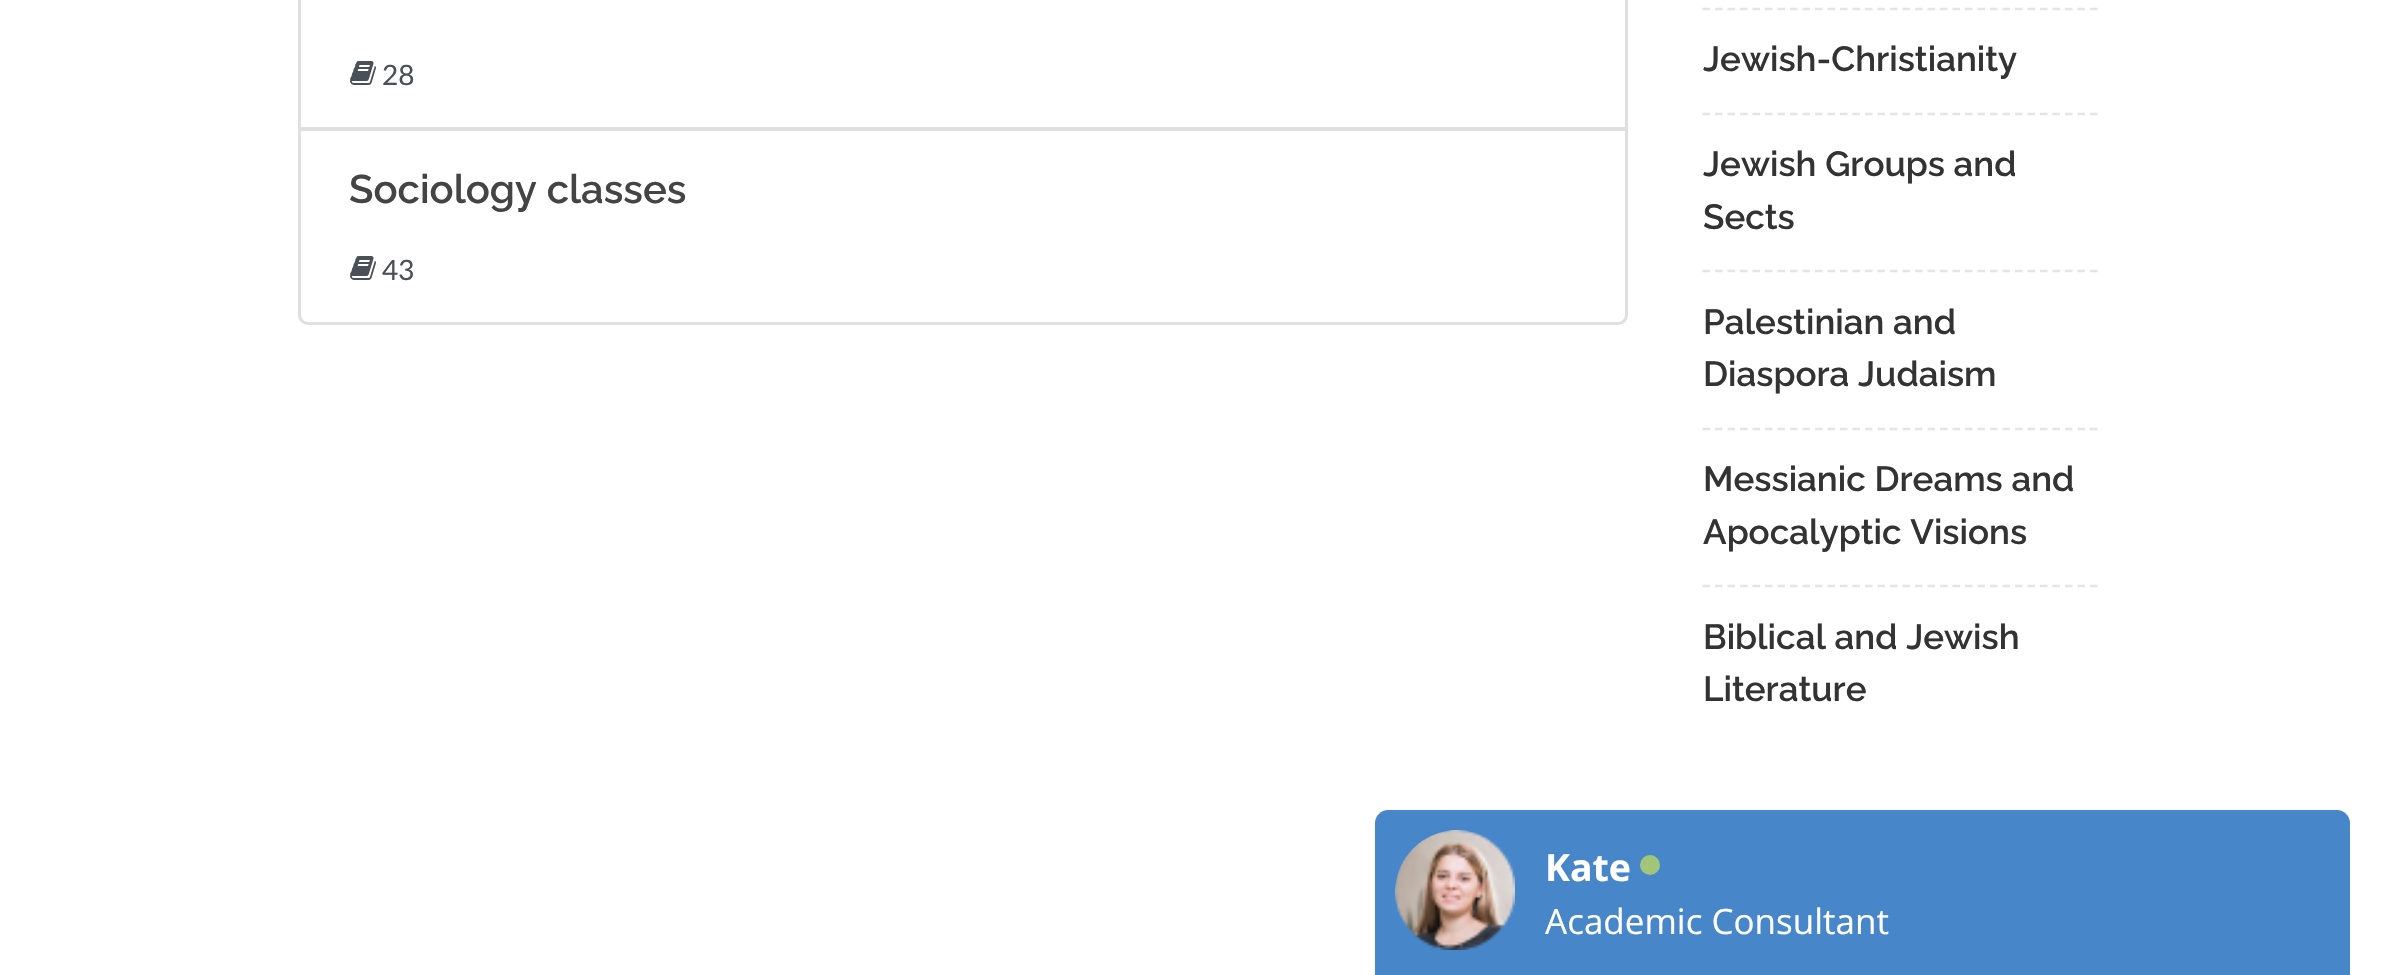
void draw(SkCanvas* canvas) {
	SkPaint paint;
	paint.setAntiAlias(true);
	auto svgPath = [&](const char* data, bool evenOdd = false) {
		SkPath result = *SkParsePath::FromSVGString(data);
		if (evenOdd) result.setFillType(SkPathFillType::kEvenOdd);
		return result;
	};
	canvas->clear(0xffffffff);
	paint.setStroke(true);
	paint.setStrokeWidth(3);
	paint.setColor(0xffdfdfdf);
	canvas->drawRect(SkRect::MakeXYWH(299.5, -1.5, 1327, 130), paint);
	canvas->drawImageRect(SkImages::DeferredFromEncodedData(SkData::MakeFromFileName("img1.png")), SkRect::MakeXYWH(350, 61, 26, 24), SkSamplingOptions());
	SkFont f1(fontMgr->matchFamilyStyle("Lato", SkFontStyle::Normal()), 28);
	f1.setSubpixel(true);
	paint.setStroke(false);
	paint.setColor(0xff495057);
	canvas->drawString("28", 382, 85, f1, paint);
	paint.setColor(0xffffffff);
	canvas->drawPath(svgPath("M299.5 129.5H1626.5V315C1626.5 319.5 1622.5 323.5 1618 323.5H308C303.5 323.5 299.5 319.5 299.5 315Z"), paint);
	paint.setStroke(true);
	paint.setColor(0xffdfdfdf);
	canvas->drawPath(svgPath("M299.5 129.5H1626.5V315C1626.5 319.5 1622.5 323.5 1618 323.5H308C303.5 323.5 299.5 319.5 299.5 315Z"), paint);
	SkFont f2(fontMgr->matchFamilyStyle("Raleway", SkFontStyle(600, SkFontStyle::kNormal_Width, SkFontStyle::kUpright_Slant)), 40);
	f2.setSubpixel(true);
	paint.setStroke(false);
	paint.setColor(0xff444444);
	canvas->drawString("Sociology classes", 349, 203, f2, paint);
	canvas->drawImageRect(SkImages::DeferredFromEncodedData(SkData::MakeFromFileName("img1.png")), SkRect::MakeXYWH(350, 256, 26, 24), SkSamplingOptions());
	paint.setColor(0xff495057);
	canvas->drawString("43", 382, 280, f1, paint);
	paint.setStroke(true);
	paint.setStrokeWidth(2.5);
	paint.setColor(0xffe5e5e5);
	paint.setPathEffect(SkDashPathEffect::Make({{7.5f, 5}}, 0));
	canvas->drawPath(svgPath("M1702.5 9H2097.5"), paint);
	paint.setPathEffect(nullptr);
	SkFont f3(fontMgr->matchFamilyStyle("Raleway", SkFontStyle(600, SkFontStyle::kNormal_Width, SkFontStyle::kUpright_Slant)), 35);
	f3.setSubpixel(true);
	paint.setStroke(false);
	paint.setColor(0xff333333);
	canvas->drawString("Jewish-Christianity", 1703, 71, f3, paint);
	paint.setStroke(true);
	paint.setColor(0xffe5e5e5);
	paint.setPathEffect(SkDashPathEffect::Make({{7.5f, 5}}, 0));
	canvas->drawPath(svgPath("M1702.5 114H2097.5"), paint);
	paint.setPathEffect(nullptr);
	paint.setStroke(false);
	paint.setColor(0xff333333);
	canvas->drawString("Jewish Groups and", 1703, 176, f3, paint);
	canvas->drawString("Sects", 1703, 229, f3, paint);
	paint.setStroke(true);
	paint.setColor(0xffe5e5e5);
	paint.setPathEffect(SkDashPathEffect::Make({{7.5f, 5}}, 0));
	canvas->drawPath(svgPath("M1702.5 271H2097.5"), paint);
	paint.setPathEffect(nullptr);
	paint.setStroke(false);
	paint.setColor(0xff333333);
	canvas->drawString("Palestinian and", 1703, 334, f3, paint);
	canvas->drawString("Diaspora Judaism", 1703, 386, f3, paint);
	paint.setStroke(true);
	paint.setColor(0xffe5e5e5);
	paint.setPathEffect(SkDashPathEffect::Make({{7.5f, 5}}, 0));
	canvas->drawPath(svgPath("M1702.5 429H2097.5"), paint);
	paint.setPathEffect(nullptr);
	paint.setStroke(false);
	paint.setColor(0xff333333);
	canvas->drawString("Messianic Dreams and", 1703, 491, f3, paint);
	canvas->drawString("Apocalyptic Visions", 1703, 544, f3, paint);
	paint.setStroke(true);
	paint.setColor(0xffe5e5e5);
	paint.setPathEffect(SkDashPathEffect::Make({{7.5f, 5}}, 0));
	canvas->drawPath(svgPath("M1702.5 586H2097.5"), paint);
	paint.setPathEffect(nullptr);
	paint.setStroke(false);
	paint.setColor(0xff333333);
	canvas->drawString("Biblical and Jewish", 1703, 649, f3, paint);
	canvas->drawString("Literature", 1703, 701, f3, paint);
	paint.setColor(0xff4786c8);
	canvas->drawPath(svgPath("M1388 810H2337C2344 810 2350 816 2350 823V975H1375V823C1375 816 1381 810 1388 810Z"), paint);
	canvas->drawImageRect(SkImages::DeferredFromEncodedData(SkData::MakeFromFileName("img2.png")), SkRect::MakeXYWH(1395, 830, 120, 120), SkSamplingOptions());
	SkFont f4(fontMgr->matchFamilyStyle("Open Sans", SkFontStyle::Bold()), 37.5);
	f4.setSubpixel(true);
	paint.setColor(0xffffffff);
	canvas->drawString("Kate", 1545, 881, f4, paint);
	paint.setColor(0xffa2c679);
	canvas->drawCircle(1650, 865, 10, paint);
	SkFont f5(fontMgr->matchFamilyStyle("Open Sans", SkFontStyle::Normal()), 35);
	f5.setSubpixel(true);
	paint.setColor(0xffffffff);
	canvas->drawString("Academic Consultant", 1545, 934, f5, paint);
}
